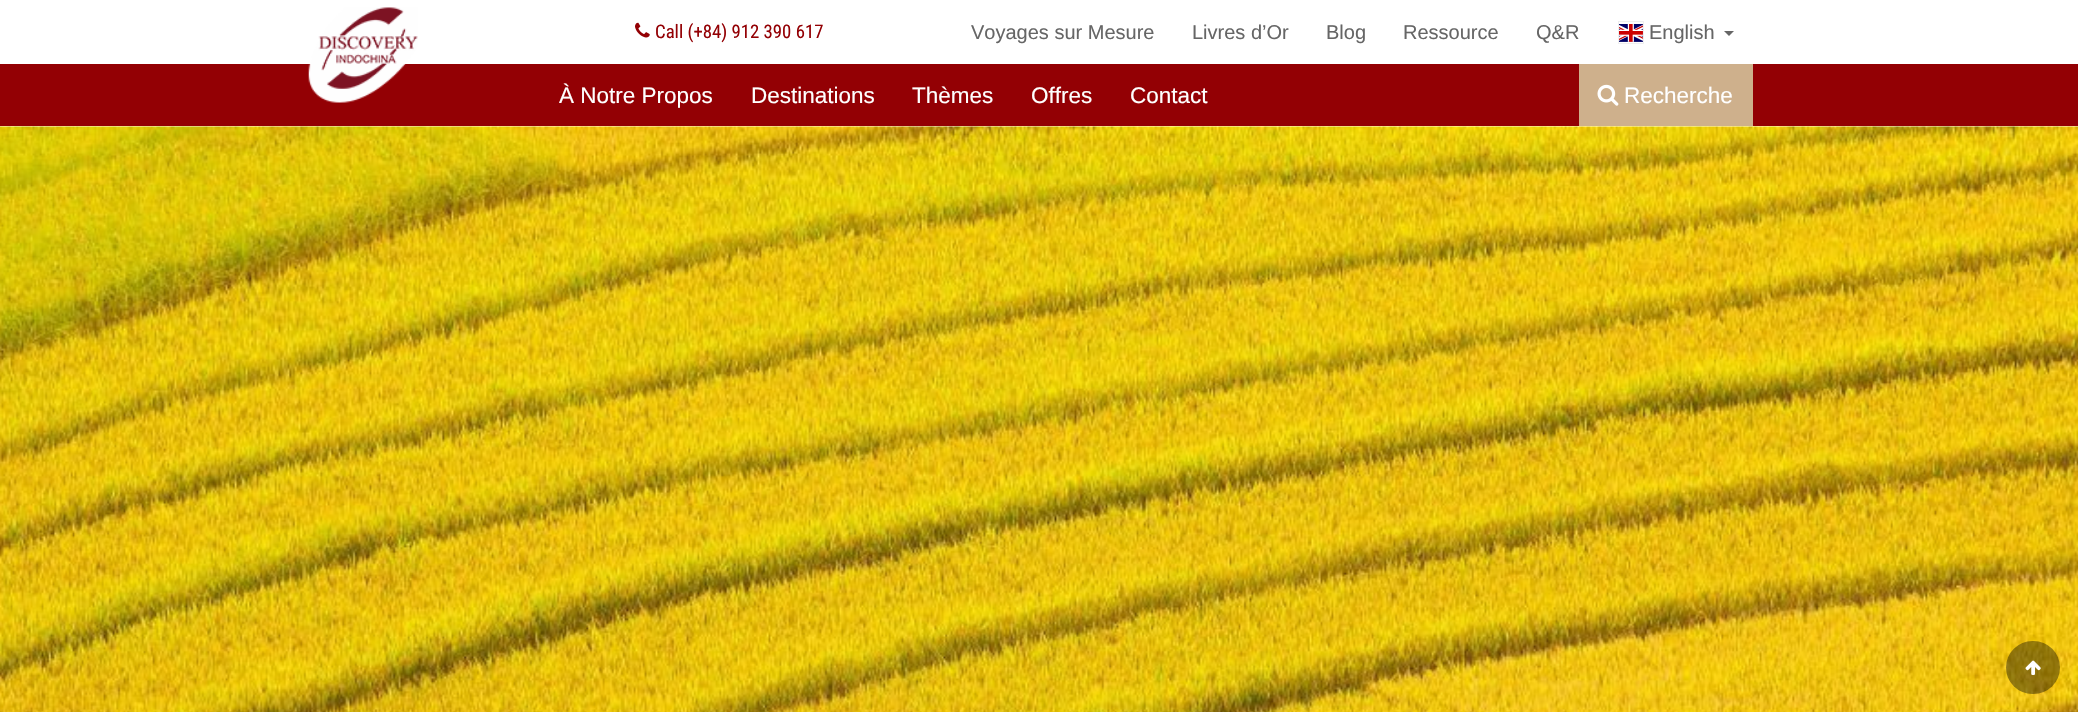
void draw(SkCanvas* canvas) {
	SkPaint paint;
	paint.setAntiAlias(true);
	auto svgPath = [&](const char* data, bool evenOdd = false) {
		SkPath result = *SkParsePath::FromSVGString(data);
		if (evenOdd) result.setFillType(SkPathFillType::kEvenOdd);
		return result;
	};
	canvas->clear(0xffffffff);
	canvas->drawImageRect(SkImages::DeferredFromEncodedData(SkData::MakeFromFileName("img1.png")), SkRect::MakeXYWH(635, 22, 15, 16), SkSamplingOptions());
	SkFont f1(fontMgr->matchFamilyStyle("Roboto Condensed", SkFontStyle::Normal()), 18.75);
	f1.setSubpixel(true);
	paint.setColor(0xff930004);
	canvas->drawString("Call (+84) 912 390 617", 655, 38, f1, paint);
	canvas->drawRect(SkRect::MakeXYWH(0, 64, 2078, 62), paint);
	canvas->drawImageRect(SkImages::DeferredFromEncodedData(SkData::MakeFromFileName("img2.png")), SkRect::MakeXYWH(308, 7, 110, 96), SkSamplingOptions());
	SkFont f2(fontMgr->matchFamilyStyle("Liberation Sans", SkFontStyle::Normal()), 20);
	f2.setSubpixel(true);
	paint.setColor(0xff666666);
	canvas->drawString("Voyages sur Mesure", 971, 39, f2, paint);
	canvas->drawString("Livres d’Or", 1192, 39, f2, paint);
	canvas->drawString("Blog", 1326, 39, f2, paint);
	canvas->drawString("Ressource", 1403, 39, f2, paint);
	canvas->drawString("Q&R", 1536, 39, f2, paint);
	canvas->drawImageRect(SkImages::DeferredFromEncodedData(SkData::MakeFromFileName("img3.png")), SkRect::MakeXYWH(1619, 24, 24, 18), SkSamplingOptions());
	paint.setStroke(true);
	paint.setStrokeWidth(1);
	paint.setColor(0xffefefef);
	canvas->drawRect(SkRect::MakeXYWH(1618.5, 21.5, 25, 22), paint);
	paint.setStroke(false);
	paint.setColor(0xff666666);
	canvas->drawString("English", 1649, 39, f2, paint);
	canvas->drawPath(svgPath("M1724 31H1734L1729 36Z"), paint);
	SkFont f3(fontMgr->matchFamilyStyle("Liberation Sans", SkFontStyle::Normal()), 22.5);
	f3.setSubpixel(true);
	paint.setColor(0xffffffff);
	canvas->drawString("À Notre Propos", 559, 103, f3, paint);
	canvas->drawString("Destinations", 751, 103, f3, paint);
	canvas->drawString("Thèmes", 912, 103, f3, paint);
	canvas->drawString("Offres", 1031, 103, f3, paint);
	canvas->drawString("Contact", 1130, 103, f3, paint);
	paint.setColor(0xffceb08c);
	canvas->drawRect(SkRect::MakeXYWH(1579, 64, 174, 62), paint);
	canvas->drawImageRect(SkImages::DeferredFromEncodedData(SkData::MakeFromFileName("img4.png")), SkRect::MakeXYWH(1597, 84, 22, 22), SkSamplingOptions());
	paint.setColor(0xffffffff);
	canvas->drawString("Recherche", 1624, 103, f3, paint);
	canvas->drawImageRect(SkImages::DeferredFromEncodedData(SkData::MakeFromFileName("img5.png")), SkRect::MakeXYWH(0, 126, 2078, 586), SkSamplingOptions());
	paint.setColor(0x66000000);
	canvas->drawRoundRect(SkRect::MakeXYWH(2006, 641, 54, 53), 26.5, 26.5, paint);
	canvas->drawImageRect(SkImages::DeferredFromEncodedData(SkData::MakeFromFileName("img6.png")), SkRect::MakeXYWH(2025, 660, 16, 15), SkSamplingOptions());
}
